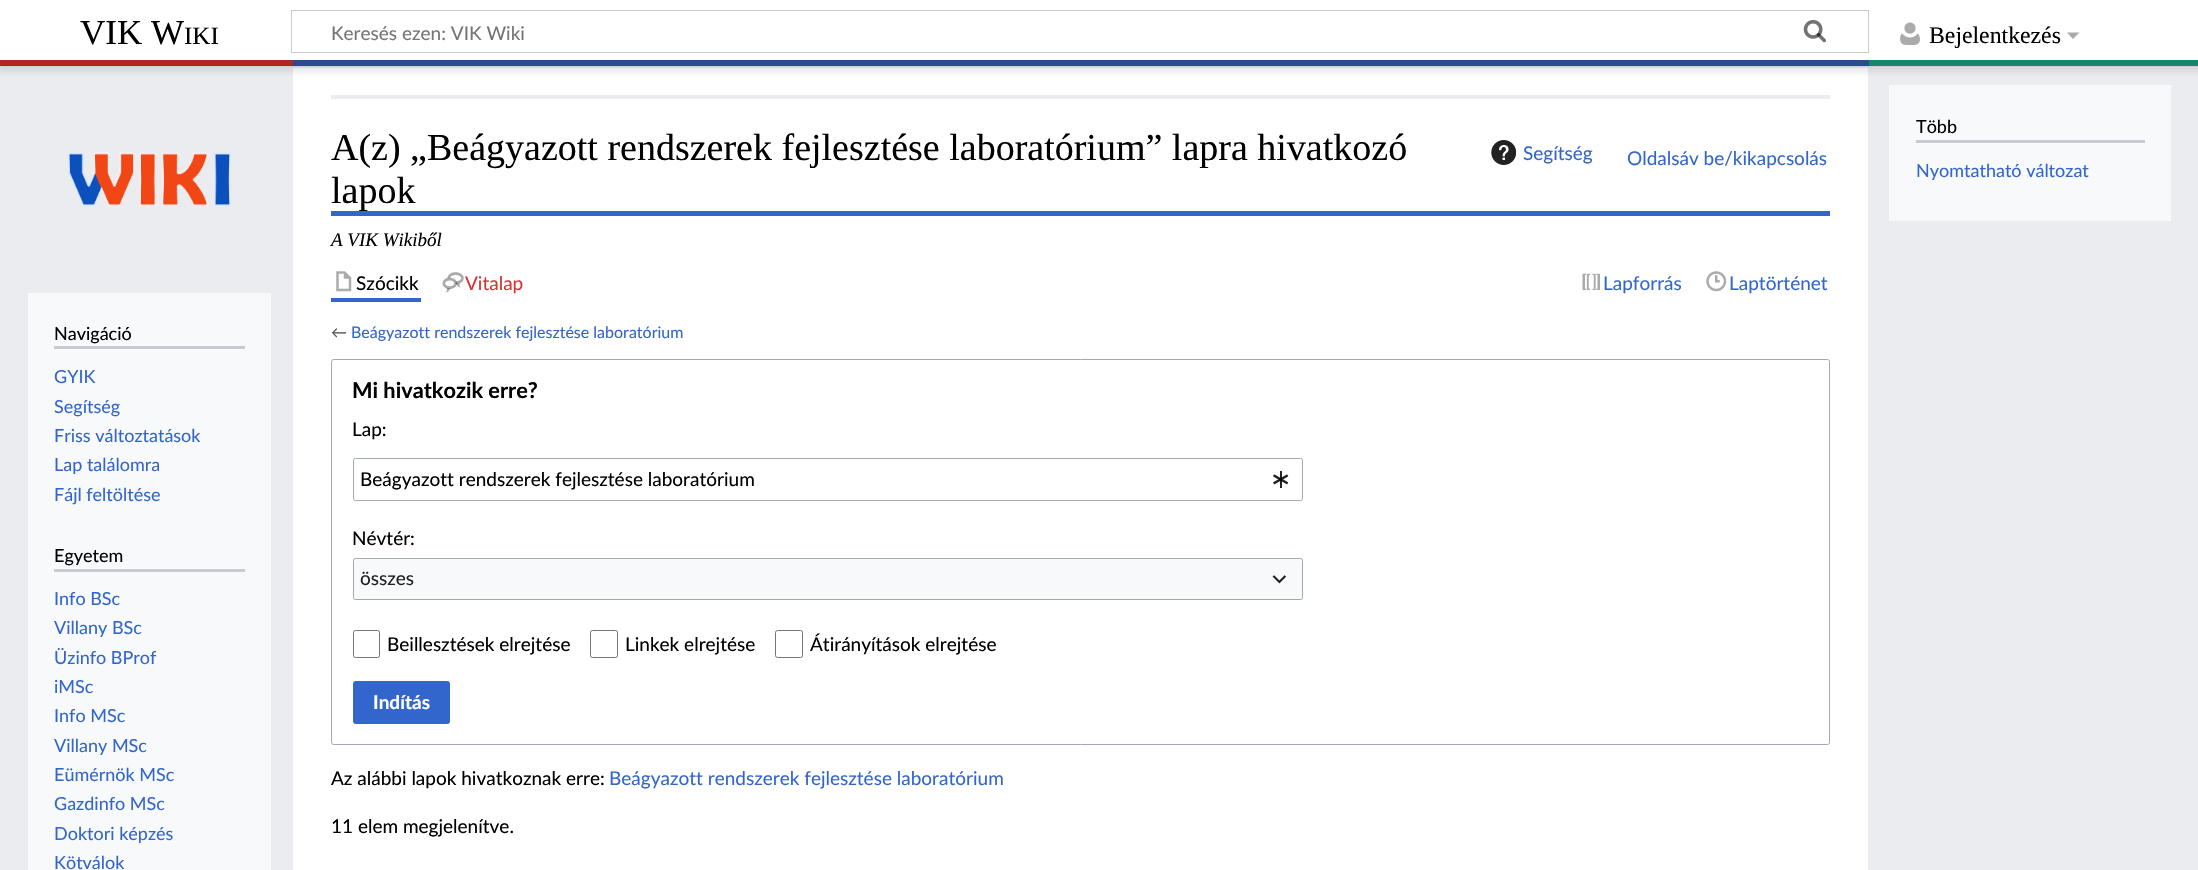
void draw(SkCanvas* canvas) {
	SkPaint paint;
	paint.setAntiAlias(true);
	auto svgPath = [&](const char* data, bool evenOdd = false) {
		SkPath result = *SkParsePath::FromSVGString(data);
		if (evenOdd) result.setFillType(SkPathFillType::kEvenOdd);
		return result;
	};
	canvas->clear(0xffeaecf0);
	paint.setColor(0xffffffff);
	canvas->drawRect(SkRect::MakeXYWH(293, 68, 1575, 802), paint);
	paint.setColor(0x33000000);
	paint.setMaskFilter(SkMaskFilter::MakeBlur(kNormal_SkBlurStyle, 1));
	canvas->drawRect(SkRect::MakeXYWH(0, 60, 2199, 6), paint);
	paint.setMaskFilter(nullptr);
	paint.setColor(0x12000000);
	paint.setMaskFilter(SkMaskFilter::MakeBlur(kNormal_SkBlurStyle, 2));
	canvas->drawRect(SkRect::MakeXYWH(-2, 61, 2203, 12), paint);
	paint.setMaskFilter(nullptr);
	paint.setColor(0xffffffff);
	canvas->drawRect(SkRect::MakeXYWH(0, 0, 2198, 60), paint);
	SkFont f1(fontMgr->matchFamilyStyle("Liberation Serif", SkFontStyle::Normal()), 35);
	f1.setSubpixel(true);
	paint.setColor(0xff000000);
	canvas->drawString("VIK W", 80, 44, f1, paint);
	SkFont f2(fontMgr->matchFamilyStyle("Liberation Serif", SkFontStyle::Normal()), 25);
	f2.setSubpixel(true);
	canvas->drawString("IKI", 184, 44, f2, paint);
	paint.setStroke(true);
	paint.setStrokeWidth(1);
	paint.setColor(0xffc8ccd1);
	canvas->drawRect(SkRect::MakeXYWH(291.5, 10.5, 1577, 42), paint);
	canvas->drawImageRect(SkImages::DeferredFromEncodedData(SkData::MakeFromFileName("img1.png")), SkRect::MakeXYWH(1803, 20, 23, 23), SkSamplingOptions());
	SkFont f3(fontMgr->matchFamilyStyle("Lato", SkFontStyle::Normal()), 19);
	f3.setSubpixel(true);
	paint.setStroke(false);
	paint.setColor(0xff757575);
	canvas->drawString("Keresés ezen: VIK Wiki", 331, 40, f3, paint);
	canvas->drawImageRect(SkImages::DeferredFromEncodedData(SkData::MakeFromFileName("img2.png")), SkRect::MakeXYWH(1803, 20, 23, 23), SkSamplingOptions());
	canvas->drawImageRect(SkImages::DeferredFromEncodedData(SkData::MakeFromFileName("img3.png")), SkRect::MakeXYWH(1900, 22, 20, 23), SkSamplingOptions());
	SkFont f4(fontMgr->matchFamilyStyle("Liberation Serif", SkFontStyle::Normal()), 23.75);
	f4.setSubpixel(true);
	paint.setColor(0xff000000);
	canvas->drawString("Bejelentkezés", 1929, 43, f4, paint);
	paint.setColor(0xffababab);
	canvas->drawPath(svgPath("M2079.5 32.5L2073 39L2067 32.5Z"), paint);
	paint.setColor(0xffb32424);
	canvas->drawRect(SkRect::MakeXYWH(0, 60, 293, 6), paint);
	paint.setColor(0xff2a4b8d);
	canvas->drawRect(SkRect::MakeXYWH(293, 60, 1576, 6), paint);
	paint.setColor(0xff14866d);
	canvas->drawRect(SkRect::MakeXYWH(1869, 60, 329, 6), paint);
	canvas->drawImageRect(SkImages::DeferredFromEncodedData(SkData::MakeFromFileName("img4.png")), SkRect::MakeXYWH(67, 152, 165, 55), SkSamplingOptions());
	paint.setColor(0xfff8f9fa);
	canvas->drawRect(SkRect::MakeXYWH(28, 293, 243, 577), paint);
	paint.setColor(0xffc8ccd1);
	canvas->drawRect(SkRect::MakeXYWH(54, 346, 191, 3), paint);
	SkFont f5(fontMgr->matchFamilyStyle("Lato", SkFontStyle::Normal()), 18);
	f5.setSubpixel(true);
	paint.setColor(0xff000000);
	canvas->drawString("Navigáció", 54, 340, f5, paint);
	paint.setColor(0xff3366cc);
	canvas->drawString("GYIK", 54, 383, f5, paint);
	canvas->drawString("Segítség", 54, 413, f5, paint);
	canvas->drawString("Friss változtatások", 54, 442, f5, paint);
	canvas->drawString("Lap találomra", 54, 471, f5, paint);
	canvas->drawString("Fájl feltöltése", 54, 501, f5, paint);
	paint.setColor(0xffc8ccd1);
	canvas->drawRect(SkRect::MakeXYWH(54, 569, 191, 3), paint);
	paint.setColor(0xff000000);
	canvas->drawString("Egyetem", 54, 562, f5, paint);
	paint.setColor(0xff3366cc);
	canvas->drawString("Info BSc", 54, 605, f5, paint);
	canvas->drawString("Villany BSc", 54, 634, f5, paint);
	canvas->drawString("Üzinfo BProf", 54, 664, f5, paint);
	canvas->drawString("iMSc", 54, 693, f5, paint);
	canvas->drawString("Info MSc", 54, 722, f5, paint);
	canvas->drawString("Villany MSc", 54, 752, f5, paint);
	canvas->drawString("Eümérnök MSc", 54, 781, f5, paint);
	canvas->drawString("Gazdinfo MSc", 54, 810, f5, paint);
	canvas->drawString("Doktori képzés", 54, 840, f5, paint);
	canvas->drawString("Kötválok", 54, 869, f5, paint);
	paint.setColor(0xffeaecf0);
	canvas->drawRect(SkRect::MakeXYWH(331, 95, 1499, 1), paint);
	canvas->drawRect(SkRect::MakeXYWH(1829, 95, 1, 4), paint);
	canvas->drawRect(SkRect::MakeXYWH(331, 96, 1499, 3), paint);
	paint.setColor(0xff3366cc);
	canvas->drawRect(SkRect::MakeXYWH(331, 211, 1499, 5), paint);
	SkFont f6(fontMgr->matchFamilyStyle("Liberation Serif", SkFontStyle::Normal()), 38);
	f6.setSubpixel(true);
	paint.setColor(0xff000000);
	canvas->drawString("A(z) „Beágyazott rendszerek fejlesztése laboratórium” lapra hivatkozó", 331, 160, f6, paint);
	canvas->drawString("lapok", 331, 203, f6, paint);
	canvas->drawImageRect(SkImages::DeferredFromEncodedData(SkData::MakeFromFileName("img5.png")), SkRect::MakeXYWH(1491, 140, 25, 25), SkSamplingOptions());
	paint.setColor(0xff3366cc);
	canvas->drawString("Segítség", 1523, 160, f3, paint);
	canvas->drawString("Oldalsáv be/kikapcsolás", 1627, 165, f3, paint);
	SkFont f7(fontMgr->matchFamilyStyle("Liberation Serif", SkFontStyle::Italic()), 19);
	f7.setSubpixel(true);
	paint.setColor(0xff000000);
	canvas->drawString("A VIK Wikiből", 331, 246, f7, paint);
	paint.setColor(0xff3366cc);
	canvas->drawRect(SkRect::MakeXYWH(331, 298, 90, 4), paint);
	canvas->drawImageRect(SkImages::DeferredFromEncodedData(SkData::MakeFromFileName("img6.png")), SkRect::MakeXYWH(336, 271, 16, 21), SkSamplingOptions());
	paint.setColor(0xff000000);
	canvas->drawString("Szócikk", 356, 290, f3, paint);
	canvas->drawImageRect(SkImages::DeferredFromEncodedData(SkData::MakeFromFileName("img7.png")), SkRect::MakeXYWH(442, 272, 22, 21), SkSamplingOptions());
	paint.setColor(0xffd73333);
	canvas->drawString("Vitalap", 465, 290, f3, paint);
	canvas->drawImageRect(SkImages::DeferredFromEncodedData(SkData::MakeFromFileName("img8.png")), SkRect::MakeXYWH(1582, 273, 18, 17), SkSamplingOptions());
	paint.setColor(0xff3366cc);
	canvas->drawString("Lapforrás", 1603, 290, f3, paint);
	canvas->drawImageRect(SkImages::DeferredFromEncodedData(SkData::MakeFromFileName("img9.png")), SkRect::MakeXYWH(1706, 271, 21, 21), SkSamplingOptions());
	canvas->drawString("Laptörténet", 1729, 290, f3, paint);
	SkFont f8(fontMgr->matchFamilyStyle("Lato", SkFontStyle::Normal()), 16);
	f8.setSubpixel(true);
	paint.setColor(0xff54595d);
	canvas->drawString("←", 331, 338, f8, paint);
	paint.setColor(0xff3366cc);
	canvas->drawString("Beágyazott rendszerek fejlesztése laboratórium", 351, 338, f8, paint);
	paint.setStroke(true);
	paint.setColor(0xffa2a9b1);
	canvas->drawRoundRect(SkRect::MakeXYWH(331.5, 359.5, 1498, 385), 2, 2, paint);
	SkFont f9(fontMgr->matchFamilyStyle("Lato", SkFontStyle::Bold()), 21.75);
	f9.setSubpixel(true);
	paint.setStroke(false);
	paint.setColor(0xff000000);
	canvas->drawString("Mi hivatkozik erre?", 352, 398, f9, paint);
	canvas->drawString("Lap:", 352, 436, f3, paint);
	paint.setStroke(true);
	paint.setColor(0xffa2a9b1);
	canvas->drawRoundRect(SkRect::MakeXYWH(353.5, 458.5, 949, 42), 2, 2, paint);
	paint.setStroke(false);
	paint.setColor(0xff000000);
	canvas->drawString("Beágyazott rendszerek fejlesztése laboratórium", 360, 486, f3, paint);
	canvas->drawImageRect(SkImages::DeferredFromEncodedData(SkData::MakeFromFileName("img10.png")), SkRect::MakeXYWH(1273, 471, 16, 17), SkSamplingOptions());
	canvas->drawString("Névtér:", 352, 545, f3, paint);
	paint.setColor(0xfff8f9fa);
	canvas->drawRect(SkRect::MakeXYWH(353, 558, 950, 42), paint);
	paint.setStroke(true);
	paint.setColor(0xffa2a9b1);
	canvas->drawRoundRect(SkRect::MakeXYWH(353.5, 558.5, 949, 41), 2, 2, paint);
	paint.setStroke(false);
	paint.setColor(0xff202122);
	canvas->drawString("összes", 360, 585, f3, paint);
	canvas->drawImageRect(SkImages::DeferredFromEncodedData(SkData::MakeFromFileName("img11.png")), SkRect::MakeXYWH(1272, 575, 14, 9), SkSamplingOptions());
	paint.setStroke(true);
	paint.setColor(0xff72777d);
	canvas->drawRoundRect(SkRect::MakeXYWH(353.5, 630.5, 26, 27), 2, 2, paint);
	paint.setStroke(false);
	paint.setColor(0xff000000);
	canvas->drawString("Beillesztések elrejtése", 387, 651, f3, paint);
	paint.setStroke(true);
	paint.setColor(0xff72777d);
	canvas->drawRoundRect(SkRect::MakeXYWH(590.5, 630.5, 27, 27), 2, 2, paint);
	paint.setStroke(false);
	paint.setColor(0xff000000);
	canvas->drawString("Linkek elrejtése", 625, 651, f3, paint);
	paint.setStroke(true);
	paint.setColor(0xff72777d);
	canvas->drawRoundRect(SkRect::MakeXYWH(775.5, 630.5, 27, 27), 2, 2, paint);
	paint.setStroke(false);
	paint.setColor(0xff000000);
	canvas->drawString("Átirányítások elrejtése", 810, 651, f3, paint);
	paint.setColor(0xff3366cc);
	canvas->drawRoundRect(SkRect::MakeXYWH(353.5, 681.5, 96, 42), 2, 2, paint);
	paint.setStroke(true);
	canvas->drawRoundRect(SkRect::MakeXYWH(353.5, 681.5, 96, 42), 2, 2, paint);
	SkFont f10(fontMgr->matchFamilyStyle("Lato", SkFontStyle::Bold()), 19);
	f10.setSubpixel(true);
	paint.setStroke(false);
	paint.setColor(0xffffffff);
	canvas->drawString("Indítás", 373, 709, f10, paint);
	paint.setColor(0xff000000);
	canvas->drawString("Az alábbi lapok hivatkoznak erre:", 331, 785, f3, paint);
	paint.setColor(0xff3366cc);
	canvas->drawString("Beágyazott rendszerek fejlesztése laboratórium", 609, 785, f3, paint);
	paint.setColor(0xff000000);
	canvas->drawString("11 elem megjelenítve.", 331, 833, f3, paint);
	paint.setColor(0xfff8f9fa);
	canvas->drawRect(SkRect::MakeXYWH(1889, 85, 282, 136), paint);
	paint.setColor(0xffc8ccd1);
	canvas->drawRect(SkRect::MakeXYWH(1916, 140, 229, 3), paint);
	paint.setColor(0xff000000);
	canvas->drawString("Több", 1916, 133, f5, paint);
	paint.setColor(0xff3366cc);
	canvas->drawString("Nyomtatható változat", 1916, 177, f5, paint);
}
